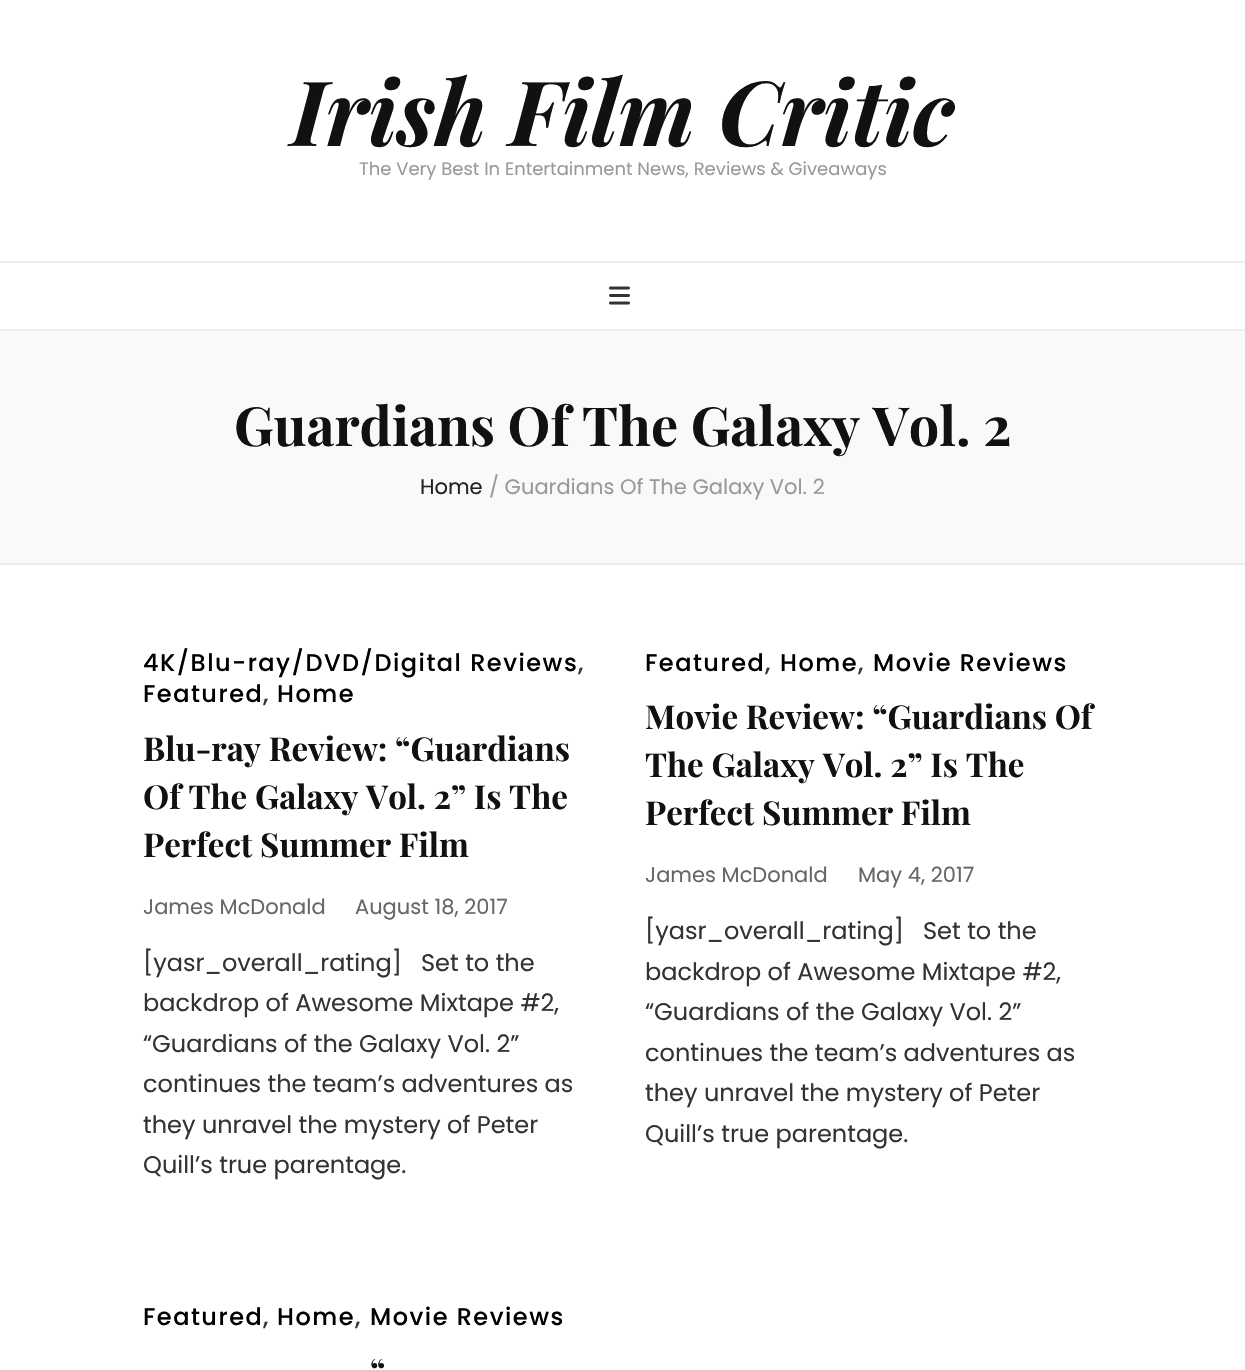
void draw(SkCanvas* canvas) {
	SkPaint paint;
	paint.setAntiAlias(true);
	auto spacedText = [&](const char* s, float x, float y, const SkFont& font, const SkPaint& ink, float letter, float word) {
		std::vector<SkGlyphID> glyphs(font.countText(s, strlen(s), SkTextEncoding::kUTF8));
		std::vector<float> xs(glyphs.size());
		font.textToGlyphs(s, strlen(s), SkTextEncoding::kUTF8, glyphs);
		font.getXPos(glyphs, xs, x);
		float extra = 0;
		for (size_t i = 0; i < glyphs.size(); i++) {
			xs[i] += extra;
			extra += letter + word * (glyphs[i] == font.unicharToGlyph(' '));
		}
		canvas->drawTextBlob(SkTextBlob::MakeFromPosHGlyphs(glyphs, xs, y, font), 0, 0, ink);
	};
	canvas->clear(0xffffffff);
	SkFont f1(fontMgr->matchFamilyStyle("Playfair Display", SkFontStyle::BoldItalic()), 90);
	f1.setSubpixel(true);
	paint.setColor(0xff111111);
	canvas->drawString("Irish Film Critic", 291, 146, f1, paint);
	SkFont f2(fontMgr->matchFamilyStyle("Poppins", SkFontStyle::Normal()), 18);
	f2.setSubpixel(true);
	paint.setColor(0xff999999);
	canvas->drawString("The Very Best In Entertainment News, Reviews & Giveaways", 359, 175, f2, paint);
	paint.setColor(0xffeeeeee);
	canvas->drawRect(SkRect::MakeXYWH(0, 261, 1245, 2), paint);
	canvas->drawRect(SkRect::MakeXYWH(0, 329, 1245, 2), paint);
	canvas->drawImageRect(SkImages::DeferredFromEncodedData(SkData::MakeFromFileName("img1.png")), SkRect::MakeXYWH(609, 286, 21, 19), SkSamplingOptions());
	paint.setColor(0xfff9f9f9);
	canvas->drawRect(SkRect::MakeXYWH(0, 331, 1245, 232), paint);
	paint.setColor(0xffeeeeee);
	canvas->drawRect(SkRect::MakeXYWH(0, 563, 1245, 2), paint);
	SkFont f3(fontMgr->matchFamilyStyle("Playfair Display", SkFontStyle::Bold()), 54);
	f3.setSubpixel(true);
	paint.setColor(0xff111111);
	canvas->drawString("Guardians Of The Galaxy Vol. 2", 234, 446, f3, paint);
	SkFont f4(fontMgr->matchFamilyStyle("Poppins", SkFontStyle::Normal()), 21);
	f4.setSubpixel(true);
	paint.setColor(0xff222222);
	canvas->drawString("Home", 420, 494, f4, paint);
	paint.setColor(0xff999999);
	canvas->drawString("/ Guardians Of The Galaxy Vol. 2", 489, 494, f4, paint);
	SkFont f5(fontMgr->matchFamilyStyle("Poppins", SkFontStyle(500, SkFontStyle::kNormal_Width, SkFontStyle::kUpright_Slant)), 24);
	f5.setSubpixel(true);
	paint.setColor(0xff000000);
	spacedText("4K/Blu-ray/DVD/Digital Reviews", 143, 671, f5, paint, 1.5, 0);
	paint.setColor(0xff333333);
	spacedText(",", 578, 671, f5, paint, 1.5, 0);
	paint.setColor(0xff000000);
	spacedText("Featured", 143, 702, f5, paint, 1.5, 0);
	paint.setColor(0xff333333);
	spacedText(",", 263, 702, f5, paint, 1.5, 0);
	paint.setColor(0xff000000);
	spacedText("Home", 277, 702, f5, paint, 1.5, 0);
	SkFont f6(fontMgr->matchFamilyStyle("Playfair Display", SkFontStyle::Bold()), 33);
	f6.setSubpixel(true);
	paint.setColor(0xff111111);
	canvas->drawString("Blu-ray Review: “Guardians", 143, 761, f6, paint);
	canvas->drawString("Of The Galaxy Vol. 2” Is The", 143, 809, f6, paint);
	canvas->drawString("Perfect Summer Film", 143, 857, f6, paint);
	paint.setColor(0xff666666);
	canvas->drawString("James McDonald", 143, 914, f4, paint);
	canvas->drawString("August 18, 2017", 355, 914, f4, paint);
	SkFont f7(fontMgr->matchFamilyStyle("Poppins", SkFontStyle::Normal()), 24);
	f7.setSubpixel(true);
	paint.setColor(0xff333333);
	canvas->drawString("[yasr_overall_rating]   Set to the", 143, 971, f7, paint);
	canvas->drawString("backdrop of Awesome Mixtape #2,", 143, 1011, f7, paint);
	canvas->drawString("“Guardians of the Galaxy Vol. 2”", 143, 1052, f7, paint);
	canvas->drawString("continues the team’s adventures as", 143, 1092, f7, paint);
	canvas->drawString("they unravel the mystery of Peter", 143, 1133, f7, paint);
	canvas->drawString("Quill’s true parentage.", 143, 1173, f7, paint);
	paint.setColor(0xff000000);
	spacedText("Featured", 645, 671, f5, paint, 1.5, 0);
	paint.setColor(0xff333333);
	spacedText(",", 765, 671, f5, paint, 1.5, 0);
	paint.setColor(0xff000000);
	spacedText("Home", 780, 671, f5, paint, 1.5, 0);
	paint.setColor(0xff333333);
	spacedText(",", 858, 671, f5, paint, 1.5, 0);
	paint.setColor(0xff000000);
	spacedText("Movie Reviews", 873, 671, f5, paint, 1.5, 0);
	paint.setColor(0xff111111);
	canvas->drawString("Movie Review: “Guardians Of", 645, 729, f6, paint);
	canvas->drawString("The Galaxy Vol. 2” Is The", 645, 777, f6, paint);
	canvas->drawString("Perfect Summer Film", 645, 825, f6, paint);
	paint.setColor(0xff666666);
	canvas->drawString("James McDonald", 645, 882, f4, paint);
	canvas->drawString("May 4, 2017", 858, 882, f4, paint);
	paint.setColor(0xff333333);
	canvas->drawString("[yasr_overall_rating]   Set to the", 645, 939, f7, paint);
	canvas->drawString("backdrop of Awesome Mixtape #2,", 645, 980, f7, paint);
	canvas->drawString("“Guardians of the Galaxy Vol. 2”", 645, 1020, f7, paint);
	canvas->drawString("continues the team’s adventures as", 645, 1061, f7, paint);
	canvas->drawString("they unravel the mystery of Peter", 645, 1101, f7, paint);
	canvas->drawString("Quill’s true parentage.", 645, 1142, f7, paint);
	paint.setColor(0xff000000);
	spacedText("Featured", 143, 1325, f5, paint, 1.5, 0);
	paint.setColor(0xff333333);
	spacedText(",", 263, 1325, f5, paint, 1.5, 0);
	paint.setColor(0xff000000);
	spacedText("Home", 277, 1325, f5, paint, 1.5, 0);
	paint.setColor(0xff333333);
	spacedText(",", 355, 1325, f5, paint, 1.5, 0);
	paint.setColor(0xff000000);
	spacedText("Movie Reviews", 370, 1325, f5, paint, 1.5, 0);
	paint.setColor(0xff111111);
	canvas->drawString("“", 370, 1383, f6, paint);
}
